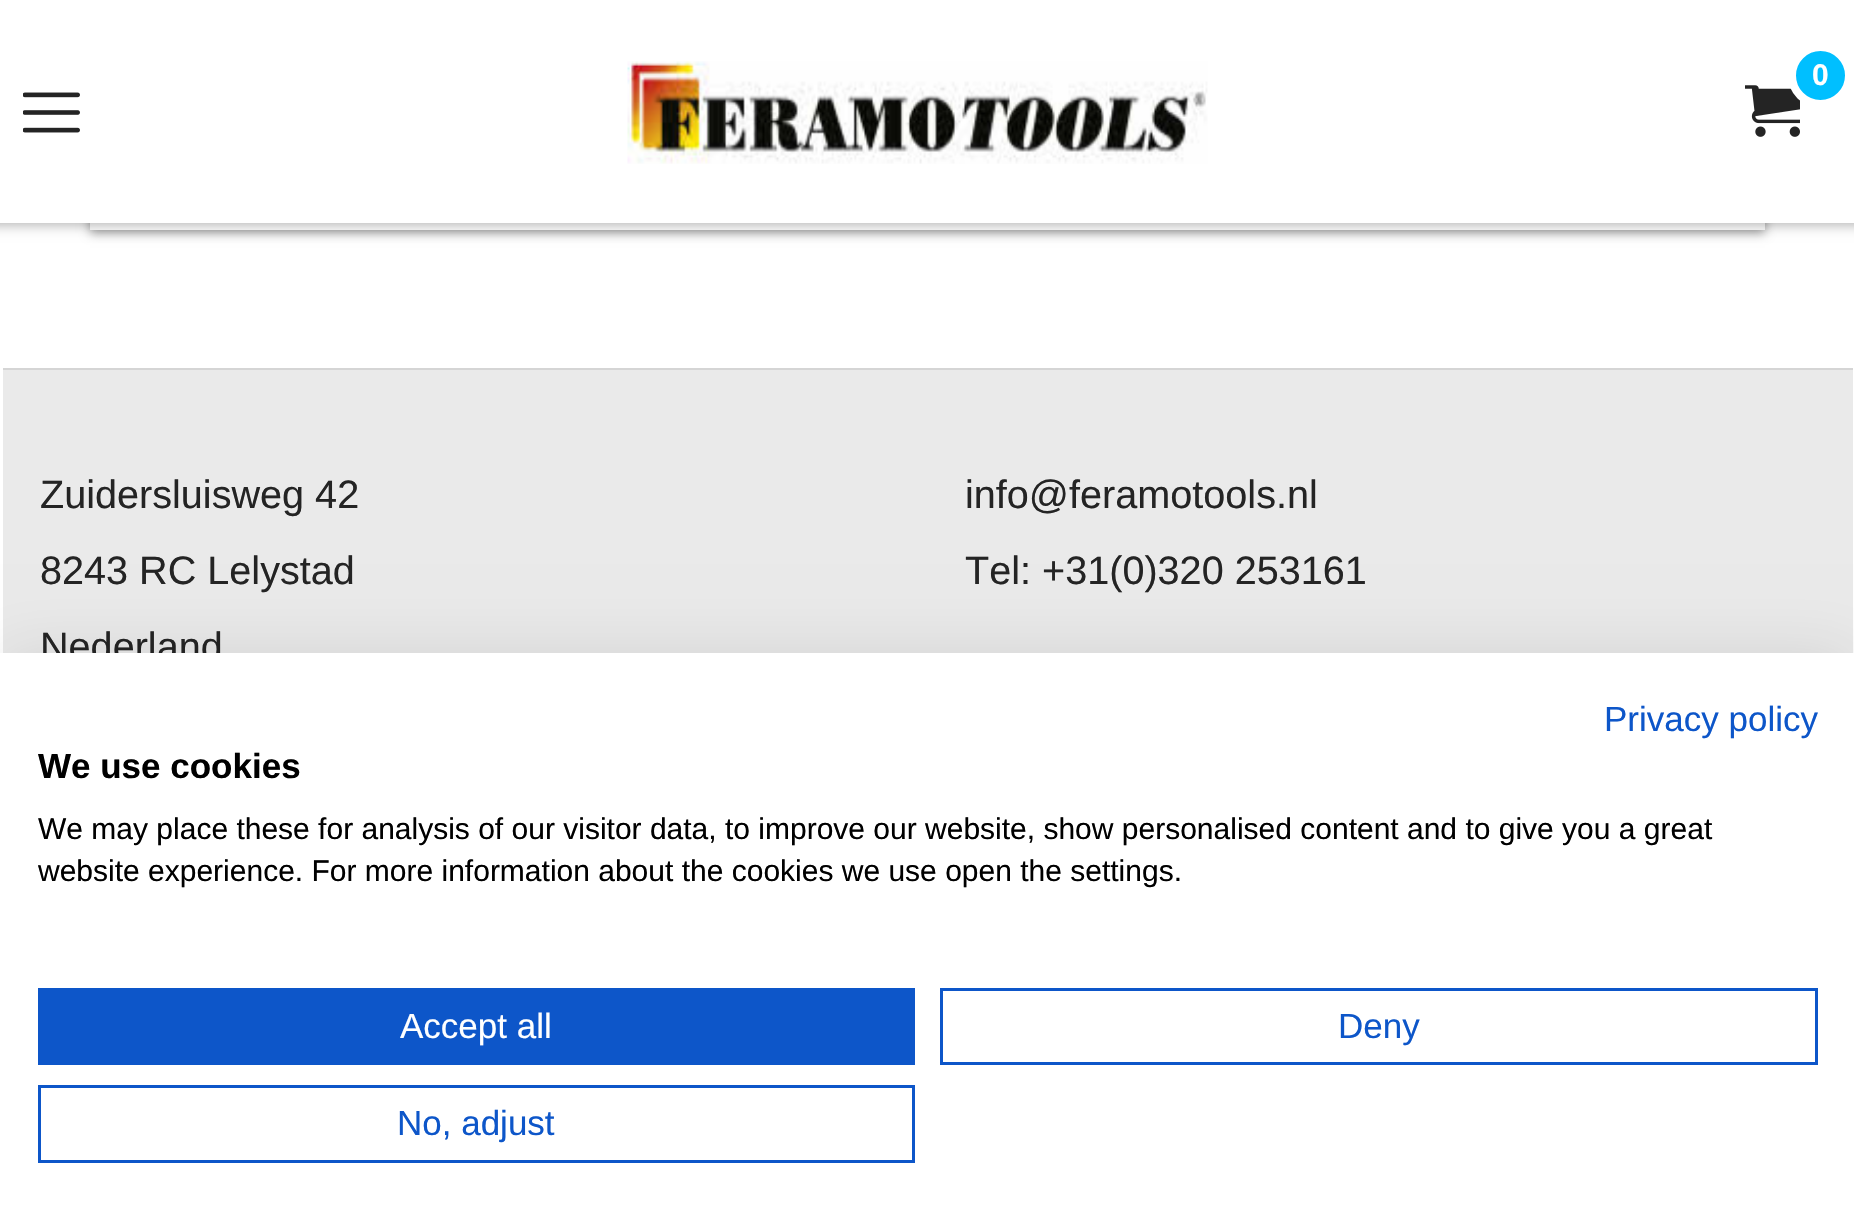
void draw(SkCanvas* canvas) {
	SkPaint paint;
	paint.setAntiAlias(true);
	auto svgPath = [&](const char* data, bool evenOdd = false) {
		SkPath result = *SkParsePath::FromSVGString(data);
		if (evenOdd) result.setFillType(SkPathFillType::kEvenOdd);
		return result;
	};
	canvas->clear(0xffffffff);
	paint.setColor(0x4d000000);
	paint.setMaskFilter(SkMaskFilter::MakeBlur(kNormal_SkBlurStyle, 6));
	canvas->drawRect(SkRect::MakeXYWH(-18, -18, 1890, 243), paint);
	paint.setMaskFilter(nullptr);
	canvas->save();
	canvas->clipPath(svgPath("M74 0H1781V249H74ZM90-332H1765V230H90Z", true), true);
	paint.setColor(0x66000000);
	paint.setMaskFilter(SkMaskFilter::MakeBlur(kNormal_SkBlurStyle, 5));
	canvas->drawRect(SkRect::MakeXYWH(90, -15, 1675, 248), paint);
	paint.setMaskFilter(nullptr);
	canvas->restore();
	paint.setColor(0xffffffff);
	canvas->drawRect(SkRect::MakeXYWH(0, 0, 1854, 223), paint);
	canvas->drawImageRect(SkImages::DeferredFromEncodedData(SkData::MakeFromFileName("img1.png")), SkRect::MakeXYWH(627, 61, 581, 103), SkSamplingOptions());
	canvas->drawImageRect(SkImages::DeferredFromEncodedData(SkData::MakeFromFileName("img2.png")), SkRect::MakeXYWH(1745, 85, 55, 52), SkSamplingOptions());
	paint.setColor(0xff00bfff);
	canvas->drawCircle(1820.5, 75.5, 28.5, paint);
	paint.setStroke(true);
	paint.setStrokeWidth(8);
	paint.setColor(0xffffffff);
	canvas->drawCircle(1820.5, 75.5, 28.5, paint);
	SkFont f1(fontMgr->matchFamilyStyle("Liberation Sans", SkFontStyle::Bold()), 30);
	f1.setSubpixel(true);
	paint.setStroke(false);
	canvas->drawString("0", 1812, 85, f1, paint);
	canvas->drawImageRect(SkImages::DeferredFromEncodedData(SkData::MakeFromFileName("img3.png")), SkRect::MakeXYWH(23, 92, 57, 41), SkSamplingOptions());
	paint.setColor(0xffd5d5d5);
	canvas->drawRect(SkRect::MakeXYWH(3, 368, 1850, 2), paint);
	paint.setColor(0xffeaeaea);
	canvas->drawRect(SkRect::MakeXYWH(3, 370, 1850, 283), paint);
	SkFont f2(fontMgr->matchFamilyStyle("Liberation Sans", SkFontStyle::Normal()), 39.6);
	f2.setSubpixel(true);
	paint.setColor(0xff242424);
	canvas->drawString("Zuidersluisweg 42", 40, 508, f2, paint);
	canvas->drawString("8243 RC Lelystad", 40, 584, f2, paint);
	canvas->drawString("Nederland", 40, 660, f2, paint);
	canvas->drawString("info@feramotools.nl", 965, 508, f2, paint);
	canvas->drawString("Tel: +31(0)320 253161", 965, 584, f2, paint);
	paint.setColor(0x1a000000);
	paint.setMaskFilter(SkMaskFilter::MakeBlur(kNormal_SkBlurStyle, 30));
	canvas->drawRect(SkRect::MakeXYWH(0, 653, 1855, 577), paint);
	paint.setMaskFilter(nullptr);
	paint.setColor(0xffffffff);
	canvas->drawRect(SkRect::MakeXYWH(0, 653, 1854, 576), paint);
	SkFont f3(fontMgr->matchFamilyStyle("Liberation Sans", SkFontStyle::Normal()), 35);
	f3.setSubpixel(true);
	paint.setColor(0xff0d56c9);
	canvas->drawString("Privacy policy", 1604, 731, f3, paint);
	SkFont f4(fontMgr->matchFamilyStyle("Liberation Sans", SkFontStyle::Bold()), 35);
	f4.setSubpixel(true);
	paint.setColor(0xff000000);
	canvas->drawString("We use cookies", 38, 778, f4, paint);
	SkFont f5(fontMgr->matchFamilyStyle("Liberation Sans", SkFontStyle::Normal()), 30);
	f5.setSubpixel(true);
	canvas->drawString("We may place these for analysis of our visitor data, to improve our website, show personalised content and to give you a great", 38, 839, f5, paint);
	canvas->drawString("website experience. For more information about the cookies we use open the settings.", 38, 881, f5, paint);
	paint.setColor(0xff0d56c9);
	canvas->drawRect(SkRect::MakeXYWH(38, 988, 877, 77), paint);
	paint.setColor(0xffffffff);
	canvas->drawString("Accept all", 400, 1038, f3, paint);
	paint.setStroke(true);
	paint.setStrokeWidth(3);
	paint.setColor(0xff0d56c9);
	canvas->drawRect(SkRect::MakeXYWH(941.5, 989.5, 875, 74), paint);
	paint.setStroke(false);
	canvas->drawString("Deny", 1338, 1038, f3, paint);
	paint.setStroke(true);
	canvas->drawRect(SkRect::MakeXYWH(39.5, 1086.5, 874, 75), paint);
	paint.setStroke(false);
	canvas->drawString("No, adjust", 397, 1135, f3, paint);
}
